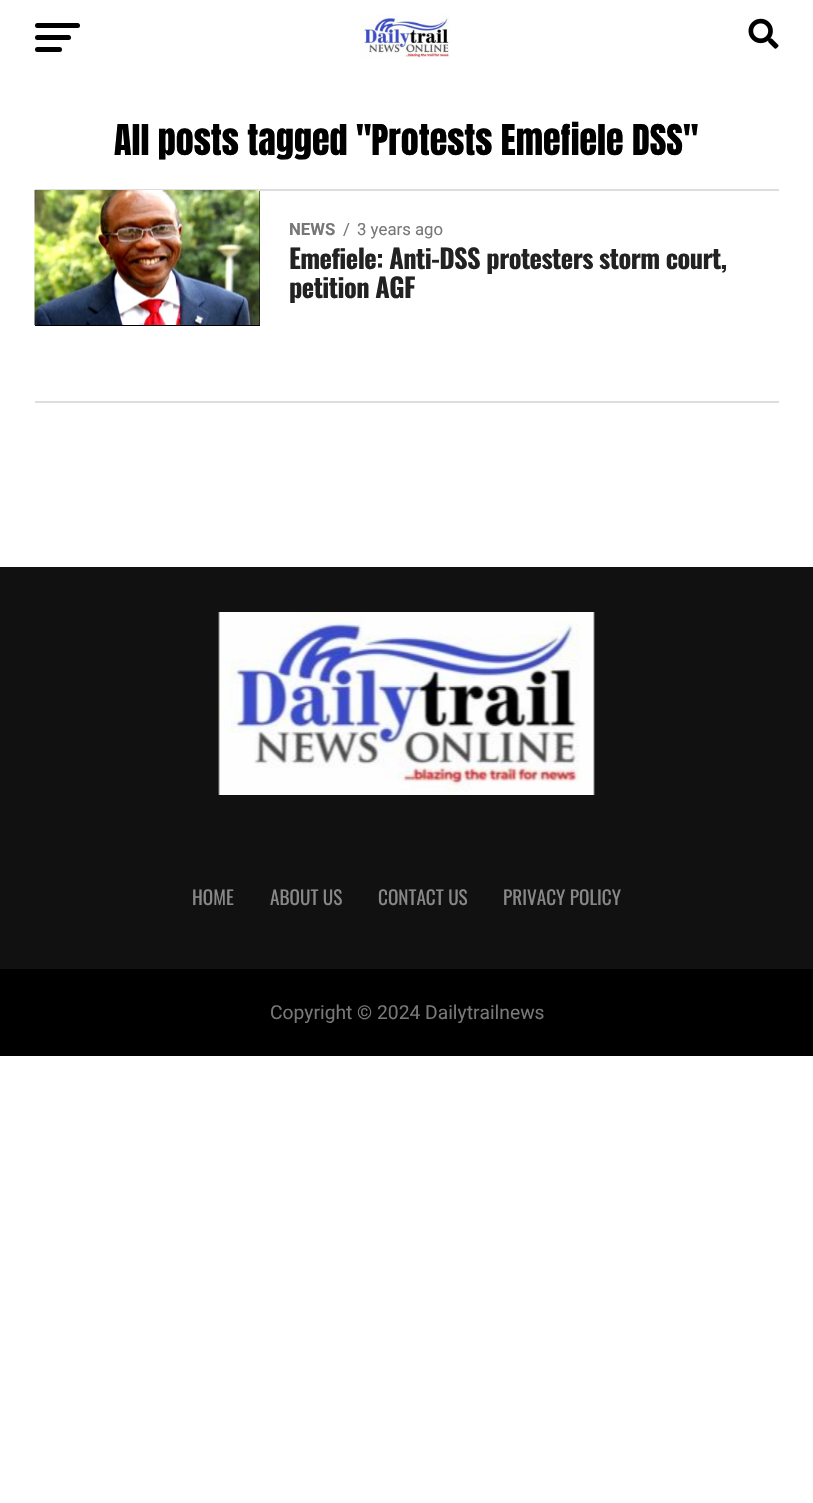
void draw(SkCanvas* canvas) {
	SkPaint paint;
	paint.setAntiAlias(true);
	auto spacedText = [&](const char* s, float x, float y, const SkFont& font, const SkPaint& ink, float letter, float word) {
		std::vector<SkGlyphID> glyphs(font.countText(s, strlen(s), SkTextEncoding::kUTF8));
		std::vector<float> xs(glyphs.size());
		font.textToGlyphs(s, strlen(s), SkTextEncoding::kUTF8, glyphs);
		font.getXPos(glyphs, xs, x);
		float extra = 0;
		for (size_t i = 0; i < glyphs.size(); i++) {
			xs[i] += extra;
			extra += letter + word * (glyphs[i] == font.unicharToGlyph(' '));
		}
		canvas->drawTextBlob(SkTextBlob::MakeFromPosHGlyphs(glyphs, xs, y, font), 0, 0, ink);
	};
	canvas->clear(0xffffffff);
	paint.setColor(0xff000000);
	canvas->drawRoundRect(SkRect::MakeXYWH(35, 23, 45, 5), 2.5, 2.5, paint);
	canvas->drawRoundRect(SkRect::MakeXYWH(35, 35, 36, 5), 2.5, 2.5, paint);
	canvas->drawRoundRect(SkRect::MakeXYWH(35, 47, 27, 5), 2.5, 2.5, paint);
	canvas->drawImageRect(SkImages::DeferredFromEncodedData(SkData::MakeFromFileName("img1.png")), SkRect::MakeXYWH(360, 15, 90, 44), SkSamplingOptions());
	canvas->drawImageRect(SkImages::DeferredFromEncodedData(SkData::MakeFromFileName("img2.png")), SkRect::MakeXYWH(748, 18, 31, 31), SkSamplingOptions());
	SkFont f1(fontMgr->matchFamilyStyle("Anton", SkFontStyle::Normal()), 36);
	f1.setSubpixel(true);
	canvas->drawString("All posts tagged \"Protests Emefiele DSS\"", 114, 155, f1, paint);
	paint.setColor(0xffdddddd);
	canvas->drawRect(SkRect::MakeXYWH(35, 189, 744, 2), paint);
	paint.setColor(0xff000000);
	canvas->drawRect(SkRect::MakeXYWH(35, 191, 225, 135), paint);
	canvas->drawImageRect(SkImages::DeferredFromEncodedData(SkData::MakeFromFileName("img3.png")), SkRect::MakeXYWH(34, 190, 226, 135), SkSamplingOptions());
	SkFont f2(fontMgr->matchFamilyStyle("Roboto", SkFontStyle::Bold()), 16.75);
	f2.setSubpixel(true);
	paint.setColor(0xff777777);
	canvas->drawString("NEWS", 289, 235, f2, paint);
	SkFont f3(fontMgr->matchFamilyStyle("Roboto", SkFontStyle::Normal()), 16.75);
	f3.setSubpixel(true);
	canvas->drawString("/", 343, 235, f3, paint);
	canvas->drawString("3 years ago", 357, 235, f3, paint);
	SkFont f4(fontMgr->matchFamilyStyle("Oswald", SkFontStyle::Bold()), 26.4);
	f4.setSubpixel(true);
	paint.setColor(0xff222222);
	spacedText("Emefiele: Anti-DSS protesters storm court,", 289, 269, f4, paint, -0.55, 0);
	spacedText("petition AGF", 289, 298, f4, paint, -0.55, 0);
	paint.setColor(0xffdddddd);
	canvas->drawRect(SkRect::MakeXYWH(35, 401, 744, 2), paint);
	paint.setColor(0xff111111);
	canvas->drawRect(SkRect::MakeXYWH(0, 567, 813, 402), paint);
	canvas->drawImageRect(SkImages::DeferredFromEncodedData(SkData::MakeFromFileName("img4.png")), SkRect::MakeXYWH(218, 612, 377, 183), SkSamplingOptions());
	SkFont f5(fontMgr->matchFamilyStyle("Oswald", SkFontStyle::Normal()), 19.25);
	f5.setSubpixel(true);
	paint.setColor(0xff888888);
	canvas->drawString("HOME", 192, 905, f5, paint);
	canvas->drawString("ABOUT US", 270, 905, f5, paint);
	canvas->drawString("CONTACT US", 378, 905, f5, paint);
	canvas->drawString("PRIVACY POLICY", 503, 905, f5, paint);
	paint.setColor(0xff000000);
	canvas->drawRect(SkRect::MakeXYWH(0, 969, 813, 87), paint);
	SkFont f6(fontMgr->matchFamilyStyle("Roboto", SkFontStyle::Normal()), 19.25);
	f6.setSubpixel(true);
	paint.setColor(0xff777777);
	canvas->drawString("Copyright © 2024 Dailytrailnews", 270, 1019, f6, paint);
}
